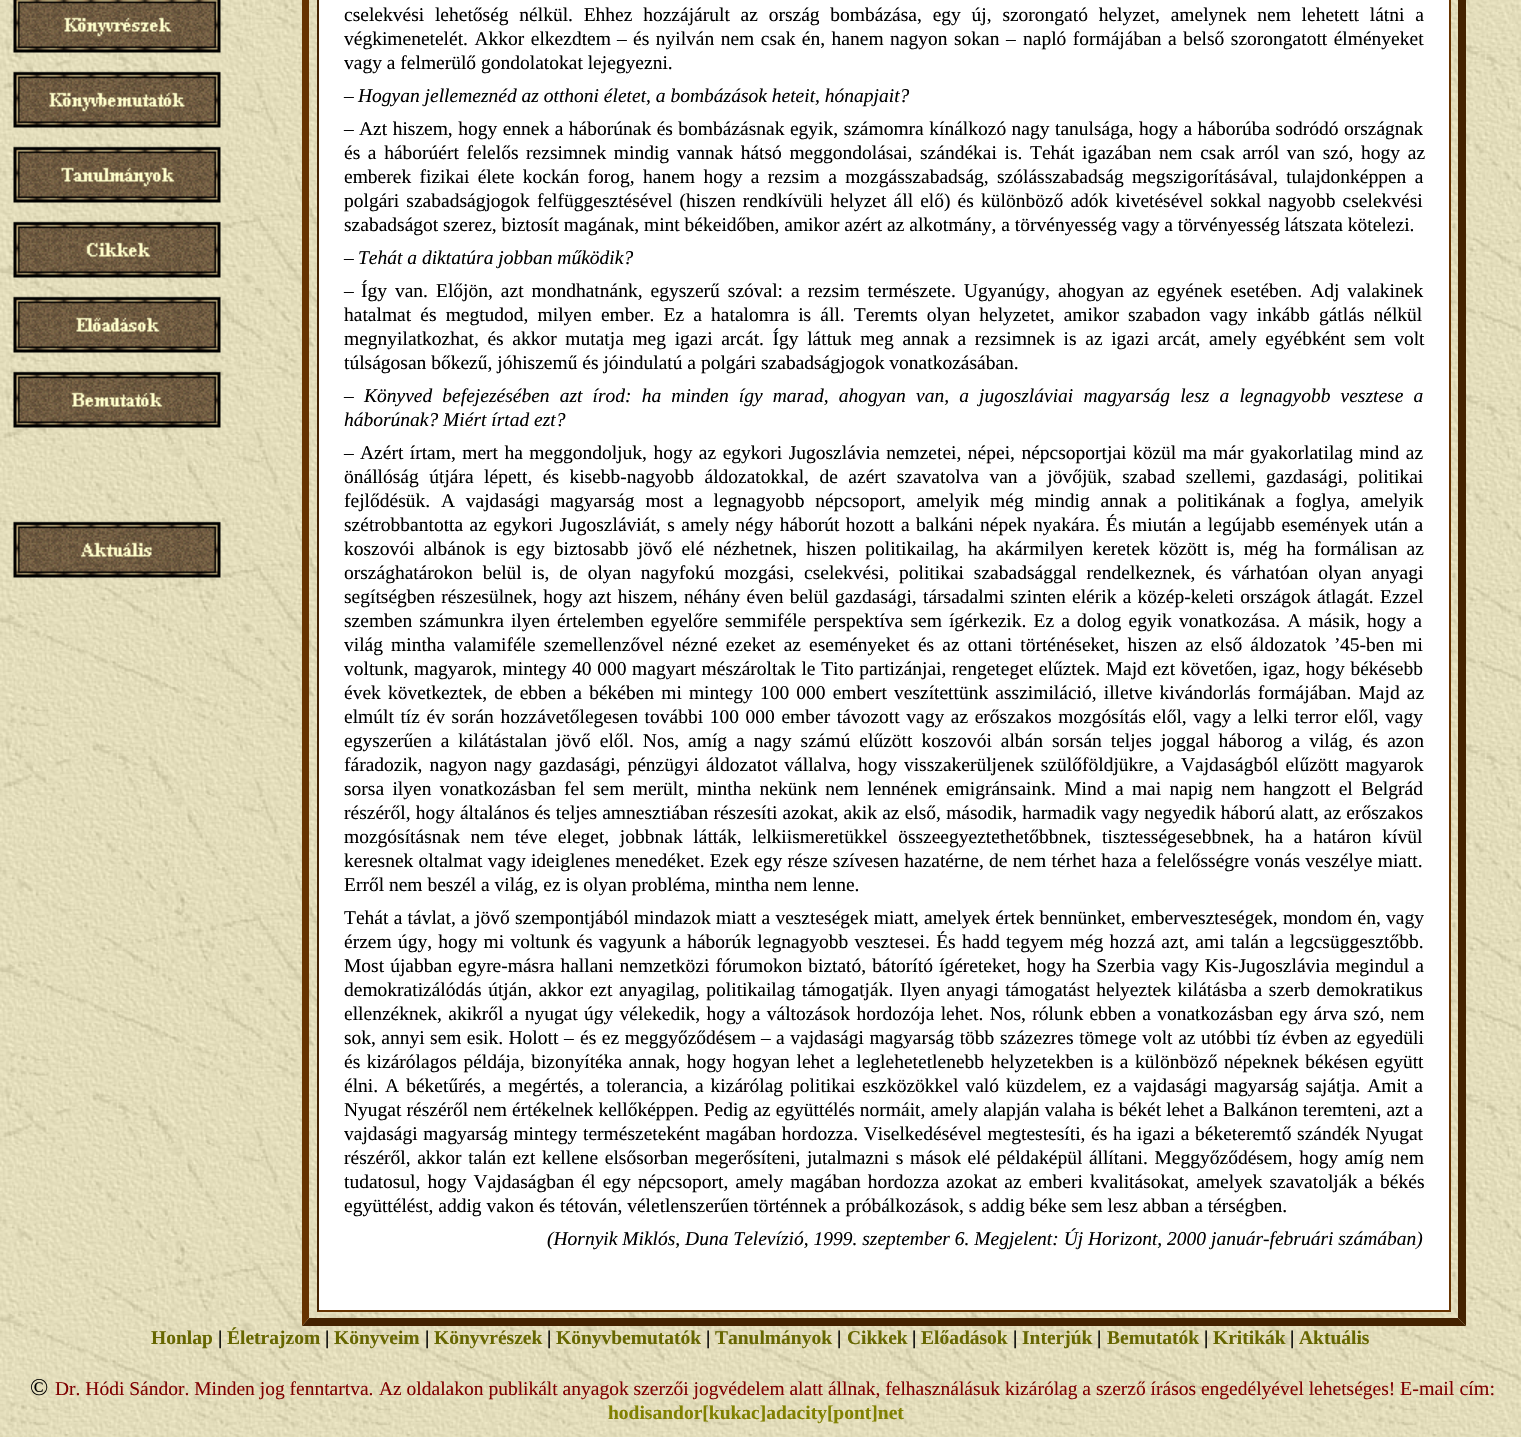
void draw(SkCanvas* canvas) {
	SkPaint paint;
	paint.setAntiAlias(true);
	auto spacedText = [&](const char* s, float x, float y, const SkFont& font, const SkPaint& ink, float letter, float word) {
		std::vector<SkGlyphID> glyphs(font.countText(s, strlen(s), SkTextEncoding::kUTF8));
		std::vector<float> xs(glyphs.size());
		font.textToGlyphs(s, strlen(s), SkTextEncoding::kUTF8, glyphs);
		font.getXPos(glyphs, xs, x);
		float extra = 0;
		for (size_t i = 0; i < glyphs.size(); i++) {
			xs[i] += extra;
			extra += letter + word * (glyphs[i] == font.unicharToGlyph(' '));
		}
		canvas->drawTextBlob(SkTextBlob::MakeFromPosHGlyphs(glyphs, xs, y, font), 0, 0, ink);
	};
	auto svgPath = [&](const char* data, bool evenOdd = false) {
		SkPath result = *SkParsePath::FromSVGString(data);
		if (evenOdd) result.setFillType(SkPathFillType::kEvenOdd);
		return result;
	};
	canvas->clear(0xffffffff);
	canvas->drawImageRect(SkImages::DeferredFromEncodedData(SkData::MakeFromFileName("img1.png")), SkRect::MakeXYWH(0, 0, 1521, 1437), SkSamplingOptions());
	canvas->drawImageRect(SkImages::DeferredFromEncodedData(SkData::MakeFromFileName("img2.png")), SkRect::MakeXYWH(13, 0, 208, 53), SkSamplingOptions());
	canvas->drawImageRect(SkImages::DeferredFromEncodedData(SkData::MakeFromFileName("img3.png")), SkRect::MakeXYWH(13, 71, 208, 57), SkSamplingOptions());
	canvas->drawImageRect(SkImages::DeferredFromEncodedData(SkData::MakeFromFileName("img4.png")), SkRect::MakeXYWH(13, 146, 208, 57), SkSamplingOptions());
	canvas->drawImageRect(SkImages::DeferredFromEncodedData(SkData::MakeFromFileName("img5.png")), SkRect::MakeXYWH(13, 221, 208, 57), SkSamplingOptions());
	canvas->drawImageRect(SkImages::DeferredFromEncodedData(SkData::MakeFromFileName("img6.png")), SkRect::MakeXYWH(13, 296, 208, 57), SkSamplingOptions());
	canvas->drawImageRect(SkImages::DeferredFromEncodedData(SkData::MakeFromFileName("img7.png")), SkRect::MakeXYWH(13, 371, 208, 57), SkSamplingOptions());
	canvas->drawImageRect(SkImages::DeferredFromEncodedData(SkData::MakeFromFileName("img8.png")), SkRect::MakeXYWH(13, 521, 208, 57), SkSamplingOptions());
	paint.setColor(0xff442200);
	canvas->drawPath(svgPath("M1466-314V1326L1458 1318V-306Z"), paint);
	canvas->drawPath(svgPath("M1466 1326H302L309 1318H1458Z"), paint);
	paint.setColor(0xff663300);
	canvas->drawPath(svgPath("M302 1326V-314L309-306V1318Z"), paint);
	paint.setColor(0xffffffff);
	canvas->drawRect(SkRect::MakeXYWH(319, 0, 1130, 1310), paint);
	paint.setColor(0xff663300);
	canvas->drawRect(SkRect::MakeXYWH(1449, 0, 2, 1311), paint);
	canvas->drawRect(SkRect::MakeXYWH(317, 1310, 1134, 2), paint);
	paint.setColor(0xff442200);
	canvas->drawRect(SkRect::MakeXYWH(317, 0, 2, 1311), paint);
	SkFont f1(fontMgr->matchFamilyStyle("Liberation Serif", SkFontStyle::Normal()), 19.5);
	f1.setSubpixel(true);
	paint.setColor(0xff000000);
	spacedText("cselekvési lehetőség nélkül. Ehhez hozzájárult az ország bombázása, egy új, szorongató helyzet, amelynek nem lehetett látni a", 344, 21, f1, paint, 0, 5.9);
	spacedText("végkimenetelét. Akkor elkezdtem", 344, 45, f1, paint, 0, 1.6);
	canvas->drawString("–", 617, 45, f1, paint);
	spacedText("és nyilván nem csak én, hanem nagyon sokan", 633, 45, f1, paint, 0, 1.6);
	canvas->drawString("–", 1006, 45, f1, paint);
	spacedText("napló formájában a belső szorongatott élményeket", 1023, 45, f1, paint, 0, 1.6);
	canvas->drawString("vagy a felmerülő gondolatokat lejegyezni.", 344, 69, f1, paint);
	canvas->drawString("–", 344, 102, f1, paint);
	SkFont f2(fontMgr->matchFamilyStyle("Liberation Serif", SkFontStyle::Italic()), 19.5);
	f2.setSubpixel(true);
	canvas->drawString("Hogyan jellemeznéd az otthoni életet, a bombázások heteit, hónapjait?", 358, 102, f2, paint);
	canvas->drawString("–", 344, 135, f1, paint);
	spacedText("Azt hiszem, hogy ennek a háborúnak és bombázásnak egyik, számomra kínálkozó nagy tanulsága, hogy a háborúba sodródó országnak", 359, 135, f1, paint, 0, 0.6);
	spacedText("és a háborúért felelős rezsimnek mindig vannak hátsó meggondolásai, szándékai is. Tehát igazában nem csak arról van szó, hogy az", 344, 159, f1, paint, 0, 2.75);
	spacedText("emberek fizikai élete kockán forog, hanem hogy a rezsim a mozgásszabadság, szólásszabadság megszigorításával, tulajdonképpen a", 344, 183, f1, paint, 0, 3.5);
	spacedText("polgári szabadságjogok felfüggesztésével (hiszen rendkívüli helyzet áll elő) és különböző adók kivetésével sokkal nagyobb cselekvési", 344, 207, f1, paint, 0, 2.25);
	canvas->drawString("szabadságot szerez, biztosít magának, mint békeidőben, amikor azért az alkotmány, a törvényesség vagy a törvényesség látszata kötelezi.", 344, 231, f1, paint);
	canvas->drawString("–", 344, 264, f1, paint);
	canvas->drawString("Tehát a diktatúra jobban működik?", 358, 264, f2, paint);
	canvas->drawString("–", 344, 297, f1, paint);
	spacedText("Így van. Előjön, azt mondhatnánk, egyszerű szóval: a rezsim természete. Ugyanúgy, ahogyan az egyének esetében. Adj valakinek", 361, 297, f1, paint, 0, 3.1);
	spacedText("hatalmat és megtudod, milyen ember. Ez a hatalomra is áll. Teremts olyan helyzetet, amikor szabadon vagy inkább gátlás nélkül", 344, 321, f1, paint, 0, 4.25);
	spacedText("megnyilatkozhat, és akkor mutatja meg igazi arcát. Így láttuk meg annak a rezsimnek is az igazi arcát, amely egyébként sem volt", 344, 345, f1, paint, 0, 3.75);
	canvas->drawString("túlságosan bőkezű, jóhiszemű és jóindulatú a polgári szabadságjogok vonatkozásában.", 344, 369, f1, paint);
	canvas->drawString("–", 344, 402, f1, paint);
	spacedText("Könyved befejezésében azt írod: ha minden így marad, ahogyan van, a jugoszláviai magyarság lesz a legnagyobb vesztese a", 364, 402, f2, paint, 0, 5.25);
	canvas->drawString("háborúnak? Miért írtad ezt?", 344, 426, f2, paint);
	canvas->drawString("–", 344, 459, f1, paint);
	spacedText("Azért írtam, mert ha meggondoljuk, hogy az egykori Jugoszlávia nemzetei, népei, népcsoportjai közül ma már gyakorlatilag mind az", 360, 459, f1, paint, 0, 1.6);
	spacedText("önállóság útjára lépett, és kisebb-nagyobb áldozatokkal, de azért szavatolva van a jövőjük, szabad szellemi, gazdasági, politikai", 344, 483, f1, paint, 0, 5.6);
	spacedText("fejlődésük. A vajdasági magyarság most a legnagyobb népcsoport, amelyik még mindig annak a politikának a foglya, amelyik", 344, 507, f1, paint, 0, 5.9);
	spacedText("szétrobbantotta az egykori Jugoszláviát, s amely négy háborút hozott a balkáni népek nyakára. És miután a legújabb események után a", 344, 531, f1, paint, 0, 1.6);
	spacedText("koszovói albánok is egy biztosabb jövő elé nézhetnek, hiszen politikailag, ha akármilyen keretek között is, még ha formálisan az", 344, 555, f1, paint, 0, 4.25);
	spacedText("országhatárokon belül is, de olyan nagyfokú mozgási, cselekvési, politikai szabadsággal rendelkeznek, és várhatóan olyan anyagi", 344, 579, f1, paint, 0, 5);
	spacedText("segítségben részesülnek, hogy azt hiszem, néhány éven belül gazdasági, társadalmi szinten elérik a közép-keleti országok átlagát. Ezzel", 344, 603, f1, paint, 0, 1.4);
	spacedText("szemben számunkra ilyen értelemben egyelőre semmiféle perspektíva sem ígérkezik. Ez a dolog egyik vonatkozása. A másik, hogy a", 344, 627, f1, paint, 0, 2.25);
	spacedText("világ mintha valamiféle szemellenzővel nézné ezeket az eseményeket és az ottani történéseket, hiszen az első áldozatok", 344, 651, f1, paint, 0, 3.25);
	canvas->drawString("’", 1334, 651, f1, paint);
	spacedText("45-ben mi", 1340, 651, f1, paint, 0, 3.25);
	spacedText("voltunk, magyarok, mintegy 40 000 magyart mészároltak le Tito partizánjai, rengeteget elűztek. Majd ezt követően, igaz, hogy békésebb", 344, 675, f1, paint, 0, 0.75);
	spacedText("évek következtek, de ebben a békében mi mintegy 100 000 embert veszítettünk asszimiláció, illetve kivándorlás formájában. Majd az", 344, 699, f1, paint, 0, 2.25);
	spacedText("elmúlt tíz év során hozzávetőlegesen további 100 000 ember távozott vagy az erőszakos mozgósítás elől, vagy a lelki terror elől, vagy", 344, 723, f1, paint, 0, 1.75);
	spacedText("egyszerűen a kilátástalan jövő elől. Nos, amíg a nagy számú elűzött koszovói albán sorsán teljes joggal háborog a világ, és azon", 344, 747, f1, paint, 0, 4.1);
	spacedText("fáradozik, nagyon nagy gazdasági, pénzügyi áldozatot vállalva, hogy visszakerüljenek szülőföldjükre, a Vajdaságból elűzött magyarok", 344, 771, f1, paint, 0, 2.1);
	spacedText("sorsa ilyen vonatkozásban fel sem merült, mintha nekünk nem lennének emigránsaink. Mind a mai napig nem hangzott el Belgrád", 344, 795, f1, paint, 0, 3.5);
	spacedText("részéről, hogy általános és teljes amnesztiában részesíti azokat, akik az első, második, harmadik vagy negyedik háború alatt, az erőszakos", 344, 819, f1, paint, 0, 0.3);
	spacedText("mozgósításnak nem téve eleget, jobbnak látták, lelkiismeretükkel összeegyeztethetőbbnek, tisztességesebbnek, ha a határon kívül", 344, 843, f1, paint, 0, 5.75);
	spacedText("keresnek oltalmat vagy ideiglenes menedéket. Ezek egy része szívesen hazatérne, de nem térhet haza a felelősségre vonás veszélye miatt.", 344, 867, f1, paint, 0, 0.4);
	canvas->drawString("Erről nem beszél a világ, ez is olyan probléma, mintha nem lenne.", 344, 891, f1, paint);
	spacedText("Tehát a távlat, a jövő szempontjából mindazok miatt a veszteségek miatt, amelyek értek bennünket, emberveszteségek, mondom én, vagy", 344, 924, f1, paint, 0, 0.4);
	spacedText("érzem úgy, hogy mi voltunk és vagyunk a háborúk legnagyobb vesztesei. És hadd tegyem még hozzá azt, ami talán a legcsüggesztőbb.", 344, 948, f1, paint, 0, 1.4);
	spacedText("Most újabban egyre-másra hallani nemzetközi fórumokon biztató, bátorító ígéreteket, hogy ha Szerbia vagy Kis-Jugoszlávia megindul a", 344, 972, f1, paint, 0, 1.2);
	spacedText("demokratizálódás útján, akkor ezt anyagilag, politikailag támogatják. Ilyen anyagi támogatást helyeztek kilátásba a szerb demokratikus", 344, 996, f1, paint, 0, 1.75);
	spacedText("ellenzéknek, akikről a nyugat úgy vélekedik, hogy a változások hordozója lehet. Nos, rólunk ebben a vonatkozásban egy árva szó, nem", 344, 1020, f1, paint, 0, 1.4);
	spacedText("sok, annyi sem esik. Holott", 344, 1044, f1, paint, 0, 0.5);
	canvas->drawString("–", 564, 1044, f1, paint);
	spacedText("és ez meggyőződésem", 580, 1044, f1, paint, 0, 0.75);
	canvas->drawString("–", 761, 1044, f1, paint);
	spacedText("a vajdasági magyarság több százezres tömege volt az utóbbi tíz évben az egyedüli", 776, 1044, f1, paint, 0, 0.75);
	spacedText("és kizárólagos példája, bizonyítéka annak, hogy hogyan lehet a leglehetetlenebb helyzetekben is a különböző népeknek békésen együtt", 344, 1068, f1, paint, 0, 1.75);
	spacedText("élni. A béketűrés, a megértés, a tolerancia, a kizárólag politikai eszközökkel való küzdelem, ez a vajdasági magyarság sajátja. Amit a", 344, 1092, f1, paint, 0, 2.1);
	spacedText("Nyugat részéről nem értékelnek kellőképpen. Pedig az együttélés normáit, amely alapján valaha is békét lehet a Balkánon teremteni, azt a", 344, 1116, f1, paint, 0, 0.25);
	spacedText("vajdasági magyarság mintegy természeteként magában hordozza. Viselkedésével megtestesíti, és ha igazi a béketeremtő szándék Nyugat", 344, 1140, f1, paint, 0, 0.8);
	spacedText("részéről, akkor talán ezt kellene elsősorban megerősíteni, jutalmazni s mások elé példaképül állítani. Meggyőződésem, hogy amíg nem", 344, 1164, f1, paint, 0, 1.7);
	spacedText("tudatosul, hogy Vajdaságban él egy népcsoport, amely magában hordozza azokat az emberi kvalitásokat, amelyek szavatolják a békés", 344, 1188, f1, paint, 0, 2.25);
	canvas->drawString("együttélést, addig vakon és tétován, véletlenszerűen történnek a próbálkozások, s addig béke sem lesz abban a térségben.", 344, 1212, f1, paint);
	canvas->drawString("(Hornyik Miklós, Duna Televízió, 1999. szeptember 6. Megjelent: Új Horizont, 2000 január-februári számában)", 547, 1245, f2, paint);
	SkFont f3(fontMgr->matchFamilyStyle("Liberation Serif", SkFontStyle::Bold()), 19.5);
	f3.setSubpixel(true);
	paint.setColor(0xff666600);
	canvas->drawString("Honlap", 151, 1344, f3, paint);
	paint.setColor(0xff000000);
	canvas->drawString("|", 218, 1344, f3, paint);
	paint.setColor(0xff666600);
	canvas->drawString("Életrajzom", 227, 1344, f3, paint);
	paint.setColor(0xff000000);
	canvas->drawString("|", 325, 1344, f3, paint);
	paint.setColor(0xff666600);
	canvas->drawString("Könyveim", 334, 1344, f3, paint);
	paint.setColor(0xff000000);
	canvas->drawString("|", 425, 1344, f3, paint);
	paint.setColor(0xff666600);
	canvas->drawString("Könyvrészek", 434, 1344, f3, paint);
	paint.setColor(0xff000000);
	canvas->drawString("|", 547, 1344, f3, paint);
	paint.setColor(0xff666600);
	canvas->drawString("Könyvbemutatók", 556, 1344, f3, paint);
	paint.setColor(0xff000000);
	canvas->drawString("|", 706, 1344, f3, paint);
	paint.setColor(0xff666600);
	canvas->drawString("Tanulmányok", 715, 1344, f3, paint);
	paint.setColor(0xff000000);
	canvas->drawString("|", 837, 1344, f3, paint);
	paint.setColor(0xff666600);
	canvas->drawString("Cikkek", 847, 1344, f3, paint);
	paint.setColor(0xff000000);
	canvas->drawString("|", 912, 1344, f3, paint);
	paint.setColor(0xff666600);
	canvas->drawString("Előadások", 921, 1344, f3, paint);
	paint.setColor(0xff000000);
	canvas->drawString("|", 1013, 1344, f3, paint);
	paint.setColor(0xff666600);
	canvas->drawString("Interjúk", 1022, 1344, f3, paint);
	paint.setColor(0xff000000);
	canvas->drawString("|", 1097, 1344, f3, paint);
	paint.setColor(0xff666600);
	canvas->drawString("Bemutatók", 1107, 1344, f3, paint);
	paint.setColor(0xff000000);
	canvas->drawString("|", 1204, 1344, f3, paint);
	paint.setColor(0xff666600);
	canvas->drawString("Kritikák", 1213, 1344, f3, paint);
	paint.setColor(0xff000000);
	canvas->drawString("|", 1290, 1344, f3, paint);
	paint.setColor(0xff666600);
	canvas->drawString("Aktuális", 1299, 1344, f3, paint);
	SkFont f4(fontMgr->matchFamilyStyle("Liberation Serif", SkFontStyle::Normal()), 24);
	f4.setSubpixel(true);
	paint.setColor(0xff000000);
	canvas->drawString("©", 30, 1395, f4, paint);
	paint.setColor(0xff800000);
	canvas->drawString("Dr. Hódi Sándor. Minden jog fenntartva.", 55, 1395, f1, paint);
	canvas->drawString("Az oldalakon publikált anyagok szerzői jogvédelem alatt állnak, felhasználásuk kizárólag a szerző írásos engedélyével lehetséges!", 379, 1395, f1, paint);
	SkFont f5(fontMgr->matchFamilyStyle("Liberation Serif", SkFontStyle::Normal()), 20);
	f5.setSubpixel(true);
	canvas->drawString("E-mail cím:", 1400, 1395, f5, paint);
	paint.setColor(0xff808000);
	canvas->drawString("hodisandor[kukac]adacity[pont]net", 608, 1419, f3, paint);
}
